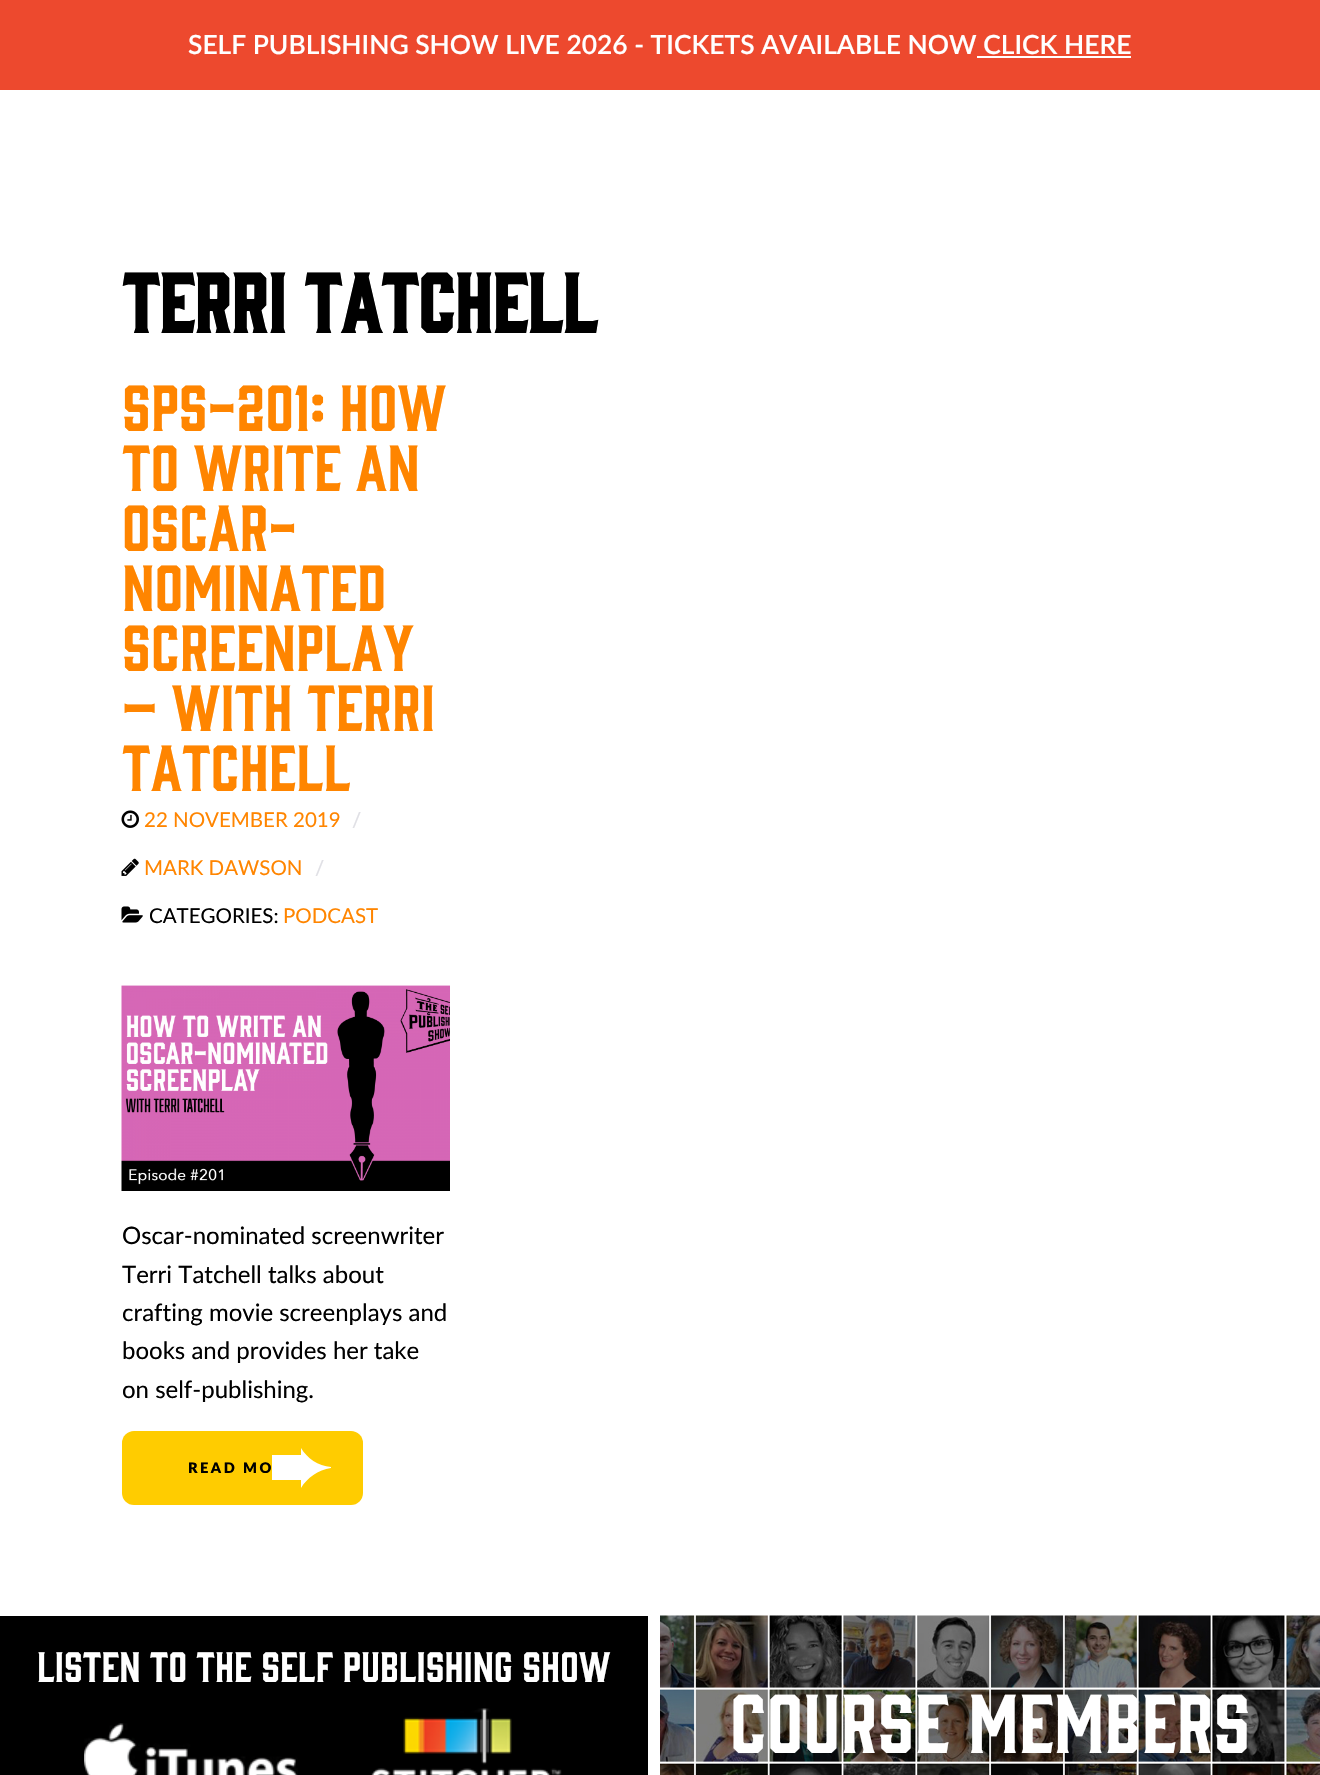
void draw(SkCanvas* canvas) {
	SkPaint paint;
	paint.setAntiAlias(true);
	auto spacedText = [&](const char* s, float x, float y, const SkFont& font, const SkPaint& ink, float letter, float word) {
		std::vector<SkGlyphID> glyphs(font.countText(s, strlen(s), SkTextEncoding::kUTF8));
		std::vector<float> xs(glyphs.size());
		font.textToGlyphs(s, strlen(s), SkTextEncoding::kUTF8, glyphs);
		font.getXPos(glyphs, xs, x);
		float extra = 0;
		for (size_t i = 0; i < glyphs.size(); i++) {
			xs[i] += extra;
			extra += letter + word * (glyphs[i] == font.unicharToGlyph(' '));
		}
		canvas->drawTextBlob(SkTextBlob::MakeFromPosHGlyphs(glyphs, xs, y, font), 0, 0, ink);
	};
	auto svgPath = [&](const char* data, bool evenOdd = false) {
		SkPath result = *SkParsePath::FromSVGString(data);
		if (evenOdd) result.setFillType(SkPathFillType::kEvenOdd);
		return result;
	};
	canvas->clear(0xffffffff);
	paint.setColor(0xffed492e);
	canvas->drawRect(SkRect::MakeXYWH(0, 0, 1320, 90), paint);
	SkFont f1(fontMgr->matchFamilyStyle("Lato", SkFontStyle(600, SkFontStyle::kNormal_Width, SkFontStyle::kUpright_Slant)), 26.4);
	f1.setSubpixel(true);
	paint.setColor(0xffffffff);
	canvas->drawString("SELF PUBLISHING SHOW LIVE 2026 - TICKETS AVAILABLE NOW CLICK HERE", 188, 54, f1, paint);
	canvas->drawRect(SkRect::MakeXYWH(977, 56, 154, 2), paint);
	SkFont f2(fontMgr->matchFamilyStyle("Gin", SkFontStyle::Bold()), 76.75);
	f2.setSubpixel(true);
	paint.setColor(0xff000000);
	canvas->drawString("terri tatchell", 122, 333, f2, paint);
	SkFont f3(fontMgr->matchFamilyStyle("Gin", SkFontStyle::Normal()), 60);
	f3.setSubpixel(true);
	paint.setColor(0xffff8500);
	canvas->drawString("SPS-201: How", 122, 431, f3, paint);
	canvas->drawString("to Write an", 122, 491, f3, paint);
	canvas->drawString("Oscar-", 122, 551, f3, paint);
	canvas->drawString("Nominated", 122, 611, f3, paint);
	canvas->drawString("Screenplay", 122, 671, f3, paint);
	canvas->drawString("– with Terri", 122, 731, f3, paint);
	canvas->drawString("Tatchell", 122, 791, f3, paint);
	canvas->drawImageRect(SkImages::DeferredFromEncodedData(SkData::MakeFromFileName("img1.png")), SkRect::MakeXYWH(121, 810, 18, 18), SkSamplingOptions());
	SkFont f4(fontMgr->matchFamilyStyle("Lato", SkFontStyle::Normal()), 20.5);
	f4.setSubpixel(true);
	canvas->drawString("22 NOVEMBER 2019", 144, 827, f4, paint);
	paint.setColor(0xffe0e0e5);
	canvas->drawString("/", 352, 827, f4, paint);
	canvas->drawImageRect(SkImages::DeferredFromEncodedData(SkData::MakeFromFileName("img2.png")), SkRect::MakeXYWH(121, 858, 18, 18), SkSamplingOptions());
	paint.setColor(0xffff8500);
	canvas->drawString("MARK DAWSON", 144, 875, f4, paint);
	paint.setColor(0xffe0e0e5);
	canvas->drawString("/", 315, 875, f4, paint);
	canvas->drawImageRect(SkImages::DeferredFromEncodedData(SkData::MakeFromFileName("img3.png")), SkRect::MakeXYWH(121, 906, 22, 17), SkSamplingOptions());
	paint.setColor(0xff000000);
	canvas->drawString("CATEGORIES:", 149, 923, f4, paint);
	paint.setColor(0xffff8500);
	canvas->drawString("PODCAST", 283, 923, f4, paint);
	canvas->drawImageRect(SkImages::DeferredFromEncodedData(SkData::MakeFromFileName("img4.png")), SkRect::MakeXYWH(121, 985, 329, 206), SkSamplingOptions());
	SkFont f5(fontMgr->matchFamilyStyle("Lato", SkFontStyle::Normal()), 24);
	f5.setSubpixel(true);
	paint.setColor(0xff000000);
	canvas->drawString("Oscar-nominated screenwriter", 122, 1244, f5, paint);
	canvas->drawString("Terri Tatchell talks about", 122, 1283, f5, paint);
	canvas->drawString("crafting movie screenplays and", 122, 1321, f5, paint);
	canvas->drawString("books and provides her take", 122, 1359, f5, paint);
	canvas->drawString("on self-publishing.", 122, 1398, f5, paint);
	paint.setColor(0xffffcc00);
	canvas->drawRoundRect(SkRect::MakeXYWH(122, 1431, 241, 74), 12, 12, paint);
	SkFont f6(fontMgr->matchFamilyStyle("Lato", SkFontStyle(800, SkFontStyle::kNormal_Width, SkFontStyle::kUpright_Slant)), 14.5);
	f6.setSubpixel(true);
	paint.setColor(0xff000000);
	spacedText("READ MO", 188, 1473, f6, paint, 2.5, 0);
	paint.setColor(0xffffffff);
	canvas->drawPath(svgPath("M301 1448V1455H272V1480H301V1488C307 1478 318 1470 331 1468V1467C318 1466 307 1458 301 1448"), paint);
	paint.setColor(0xff000000);
	canvas->drawRect(SkRect::MakeXYWH(0, 1616, 648, 159), paint);
	SkFont f7(fontMgr->matchFamilyStyle("Gin", SkFontStyle::Normal()), 39);
	f7.setSubpixel(true);
	paint.setColor(0xffffffff);
	canvas->drawString("Listen to the Self Publishing Show", 37, 1682, f7, paint);
	canvas->drawImageRect(SkImages::DeferredFromEncodedData(SkData::MakeFromFileName("img5.png")), SkRect::MakeXYWH(84, 1723, 214, 52), SkSamplingOptions());
	canvas->drawImageRect(SkImages::DeferredFromEncodedData(SkData::MakeFromFileName("img6.png")), SkRect::MakeXYWH(371, 1708, 191, 67), SkSamplingOptions());
	canvas->drawImageRect(SkImages::DeferredFromEncodedData(SkData::MakeFromFileName("img7.png")), SkRect::MakeXYWH(660, 1615, 660, 160), SkSamplingOptions());
	SkFont f8(fontMgr->matchFamilyStyle("Gin", SkFontStyle::Normal()), 76.75);
	f8.setSubpixel(true);
	canvas->drawString("Course Members", 730, 1753, f8, paint);
}
